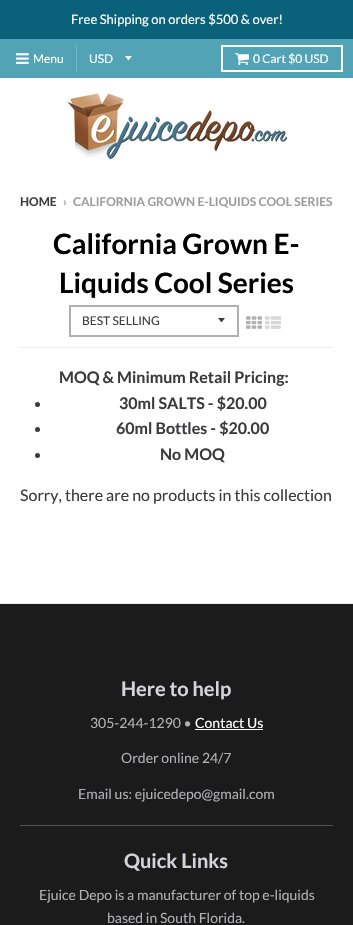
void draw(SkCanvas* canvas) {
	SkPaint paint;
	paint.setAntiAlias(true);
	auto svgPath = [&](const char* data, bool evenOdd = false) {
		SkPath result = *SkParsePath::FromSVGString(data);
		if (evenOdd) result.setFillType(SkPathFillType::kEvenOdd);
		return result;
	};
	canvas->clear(0xffffffff);
	paint.setColor(0xff0a617a);
	canvas->drawRect(SkRect::MakeXYWH(0, 0, 353, 39), paint);
	SkFont f1(fontMgr->matchFamilyStyle("Lato", SkFontStyle::Normal()), 13);
	f1.setSubpixel(true);
	paint.setColor(0xffffffff);
	canvas->drawString("Free Shipping on orders $500 & over!", 71, 24, f1, paint);
	paint.setColor(0xff53a3b6);
	canvas->drawRect(SkRect::MakeXYWH(0, 39, 353, 39), paint);
	paint.setColor(0xff75b5c4);
	canvas->drawRect(SkRect::MakeXYWH(76, 45, 1, 27), paint);
	canvas->drawImageRect(SkImages::DeferredFromEncodedData(SkData::MakeFromFileName("img1.png")), SkRect::MakeXYWH(16, 53, 13, 11), SkSamplingOptions());
	SkFont f2(fontMgr->matchFamilyStyle("Lato", SkFontStyle::Normal()), 12);
	f2.setSubpixel(true);
	paint.setColor(0xffffffff);
	canvas->drawString("Menu", 33, 63, f2, paint);
	canvas->drawPath(svgPath("M125 56C129.5 61.5 127.5 61.5 132 56Z"), paint);
	canvas->drawString("USD", 89, 63, f2, paint);
	paint.setStroke(true);
	paint.setStrokeWidth(2);
	canvas->drawRect(SkRect::MakeXYWH(222, 46, 120, 25), paint);
	canvas->drawImageRect(SkImages::DeferredFromEncodedData(SkData::MakeFromFileName("img2.png")), SkRect::MakeXYWH(235, 53, 14, 12), SkSamplingOptions());
	paint.setStroke(false);
	canvas->drawString("0 Cart $0 USD", 253, 63, f2, paint);
	canvas->drawImageRect(SkImages::DeferredFromEncodedData(SkData::MakeFromFileName("img3.png")), SkRect::MakeXYWH(67, 93, 220, 66), SkSamplingOptions());
	paint.setColor(0xffebebeb);
	canvas->drawRect(SkRect::MakeXYWH(0, 603, 353, 1), paint);
	SkFont f3(fontMgr->matchFamilyStyle("Lato", SkFontStyle::Bold()), 12);
	f3.setSubpixel(true);
	paint.setColor(0xff3b3a3d);
	canvas->drawString("HOME", 20, 206, f3, paint);
	paint.setColor(0xff9d9c9e);
	canvas->drawString("›", 63, 206, f3, paint);
	canvas->drawString("CALIFORNIA GROWN E-LIQUIDS COOL SERIES", 73, 206, f3, paint);
	paint.setColor(0xffebebeb);
	canvas->drawRect(SkRect::MakeXYWH(20, 347, 313, 1), paint);
	SkFont f4(fontMgr->matchFamilyStyle("Lato", SkFontStyle::Bold()), 28);
	f4.setSubpixel(true);
	paint.setColor(0xff000000);
	canvas->drawString("California Grown E-", 53, 254, f4, paint);
	canvas->drawString("Liquids Cool Series", 59, 293, f4, paint);
	paint.setColor(0xff3b3a3d);
	canvas->drawPath(svgPath("M218 318C222.5 323.5 220.5 323.5 225 318Z"), paint);
	paint.setStroke(true);
	paint.setColor(0xffb0b0b1);
	canvas->drawRect(SkRect::MakeXYWH(70, 306, 168, 30), paint);
	paint.setStroke(false);
	paint.setColor(0xff3b3a3d);
	canvas->drawString("BEST SELLING", 82, 325, f2, paint);
	canvas->drawImageRect(SkImages::DeferredFromEncodedData(SkData::MakeFromFileName("img4.png")), SkRect::MakeXYWH(246, 316, 16, 13), SkSamplingOptions());
	canvas->drawImageRect(SkImages::DeferredFromEncodedData(SkData::MakeFromFileName("img5.png")), SkRect::MakeXYWH(265, 316, 16, 13), SkSamplingOptions());
	SkFont f5(fontMgr->matchFamilyStyle("Lato", SkFontStyle::Bold()), 16);
	f5.setSubpixel(true);
	canvas->drawString("MOQ & Minimum Retail Pricing:", 59, 383, f5, paint);
	canvas->drawCircle(37.5, 404.5, 2.5, paint);
	canvas->drawString("30ml SALTS - $20.00", 119, 409, f5, paint);
	canvas->drawCircle(37.5, 429.5, 2.5, paint);
	canvas->drawString("60ml Bottles - $20.00", 116, 434, f5, paint);
	canvas->drawCircle(37.5, 455.5, 2.5, paint);
	canvas->drawString("No MOQ", 160, 460, f5, paint);
	SkFont f6(fontMgr->matchFamilyStyle("Lato", SkFontStyle::Normal()), 16);
	f6.setSubpixel(true);
	canvas->drawString("Sorry, there are no products in this collection", 20, 501, f6, paint);
	paint.setColor(0xff1b1b1b);
	canvas->drawRect(SkRect::MakeXYWH(0, 604, 353, 321), paint);
	SkFont f7(fontMgr->matchFamilyStyle("Lato", SkFontStyle::Bold()), 20);
	f7.setSubpixel(true);
	paint.setColor(0xffd6d4da);
	canvas->drawString("Here to help", 121, 696, f7, paint);
	SkFont f8(fontMgr->matchFamilyStyle("Lato", SkFontStyle::Normal()), 14);
	f8.setSubpixel(true);
	paint.setColor(0xffb0afb3);
	canvas->drawString("305-244-1290 •", 90, 728, f8, paint);
	paint.setColor(0xffffffff);
	canvas->drawString("Contact Us", 195, 728, f8, paint);
	canvas->drawRect(SkRect::MakeXYWH(195, 729, 68, 1), paint);
	paint.setColor(0xff535254);
	canvas->drawRect(SkRect::MakeXYWH(20, 825, 313, 1), paint);
	paint.setColor(0xffb0afb3);
	canvas->drawString("Order online 24/7", 121, 763, f8, paint);
	canvas->drawString("Email us: ejuicedepo@gmail.com", 78, 799, f8, paint);
	paint.setColor(0xffd6d4da);
	canvas->drawString("Quick Links", 124, 868, f7, paint);
	paint.setColor(0xffb0afb3);
	canvas->drawString("Ejuice Depo is a manufacturer of top e-liquids", 39, 900, f8, paint);
	canvas->drawString("based in South Florida.", 107, 923, f8, paint);
}
